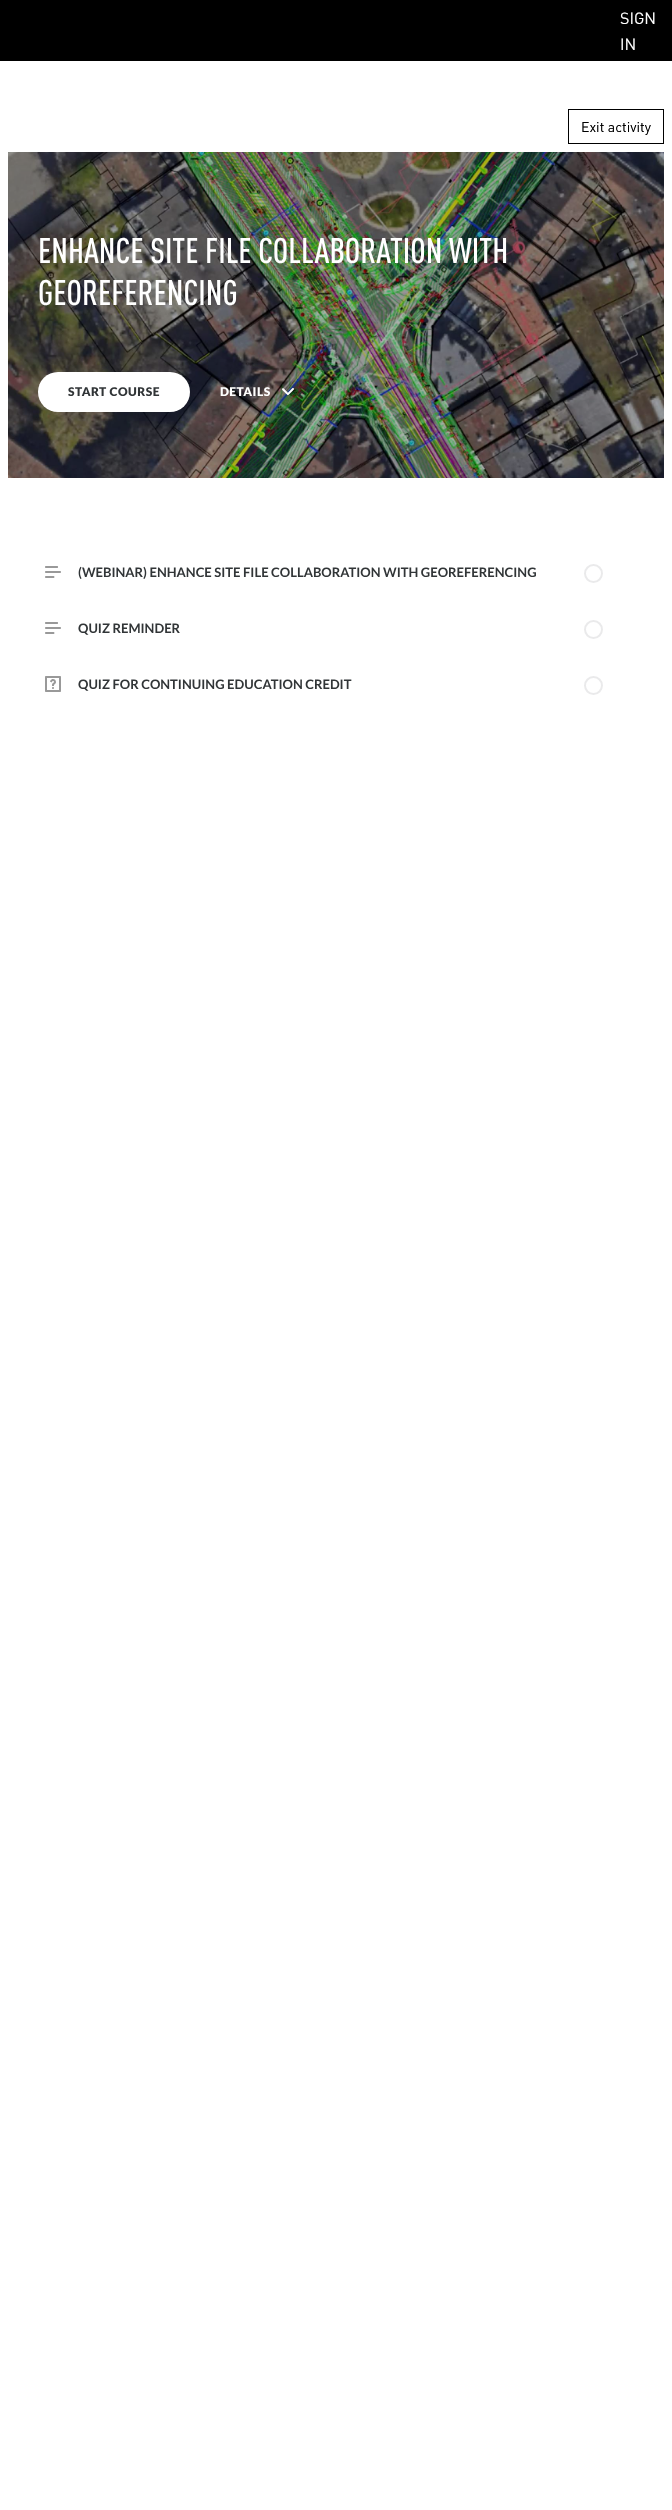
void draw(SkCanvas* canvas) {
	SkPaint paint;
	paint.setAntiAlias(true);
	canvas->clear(0xffffffff);
	paint.setColor(0xff000000);
	canvas->drawRect(SkRect::MakeXYWH(0, 0, 672, 61), paint);
	SkFont f1(fontMgr->matchFamilyStyle("DIN", SkFontStyle::Normal()), 16);
	f1.setSubpixel(true);
	paint.setColor(0xffffffff);
	canvas->drawString("SIGN", 620, 24, f1, paint);
	canvas->drawString("IN", 620, 50, f1, paint);
	paint.setStroke(true);
	paint.setStrokeWidth(1);
	paint.setColor(0xff000000);
	canvas->drawRect(SkRect::MakeXYWH(568.5, 109.5, 95, 34), paint);
	SkFont f2(fontMgr->matchFamilyStyle("DIN", SkFontStyle::Normal()), 14);
	f2.setSubpixel(true);
	paint.setStroke(false);
	canvas->drawString("Exit activity", 581, 132, f2, paint);
	canvas->drawImageRect(SkImages::DeferredFromEncodedData(SkData::MakeFromFileName("img1.png")), SkRect::MakeXYWH(8, 152, 656, 543), SkSamplingOptions());
}
